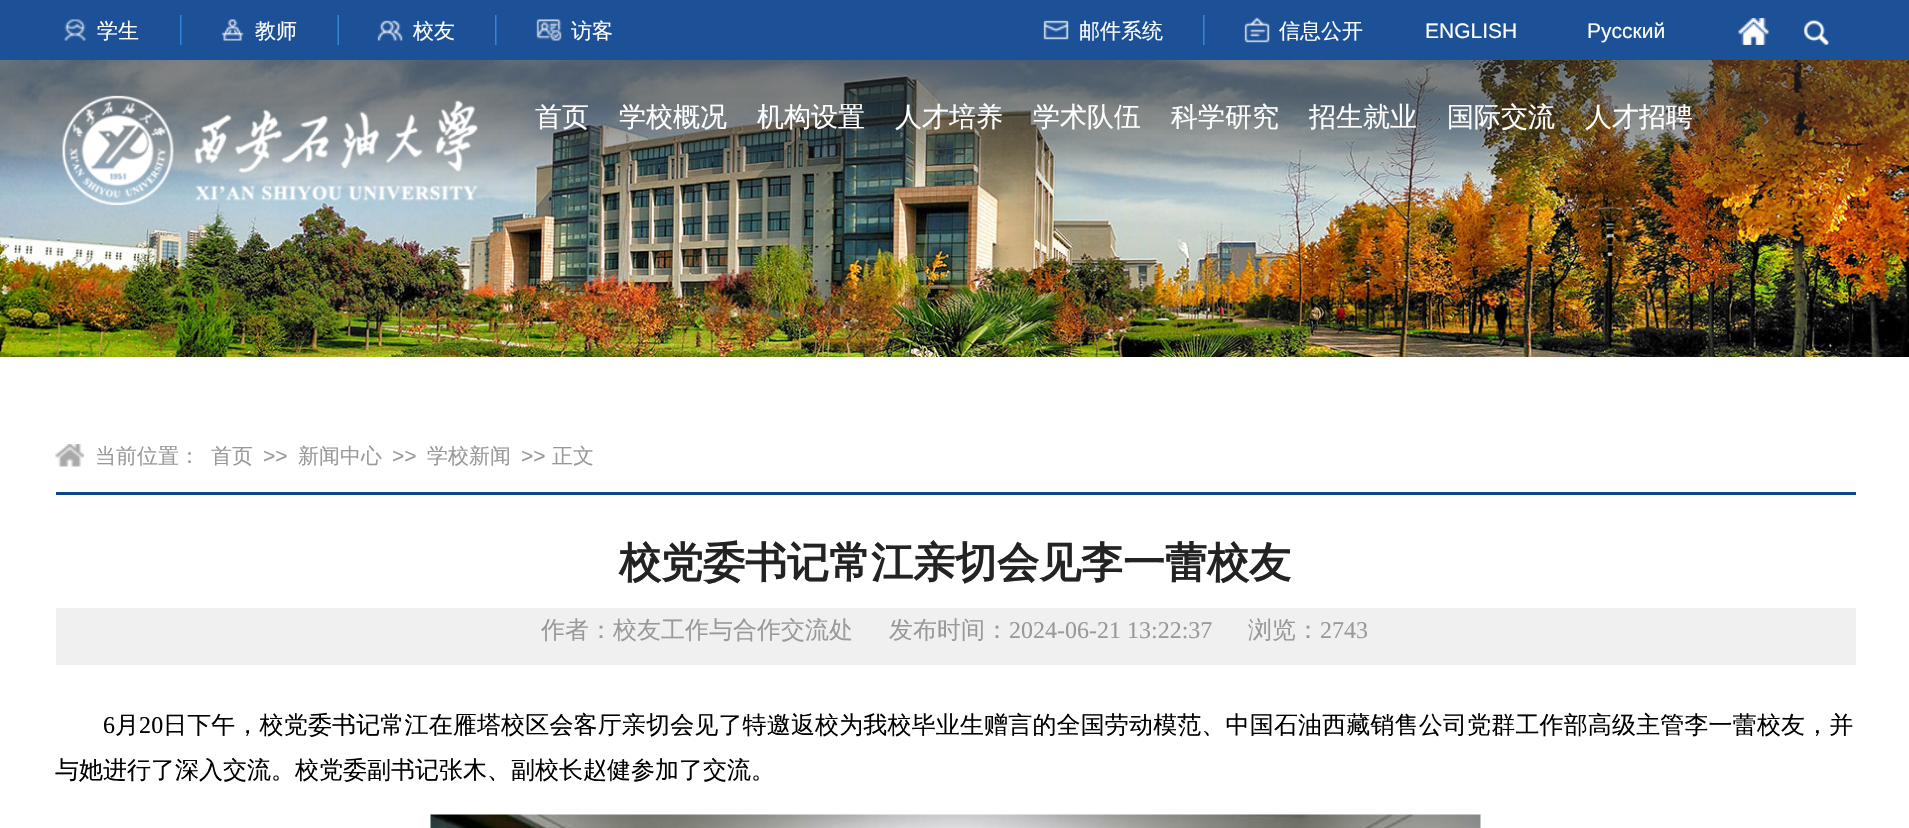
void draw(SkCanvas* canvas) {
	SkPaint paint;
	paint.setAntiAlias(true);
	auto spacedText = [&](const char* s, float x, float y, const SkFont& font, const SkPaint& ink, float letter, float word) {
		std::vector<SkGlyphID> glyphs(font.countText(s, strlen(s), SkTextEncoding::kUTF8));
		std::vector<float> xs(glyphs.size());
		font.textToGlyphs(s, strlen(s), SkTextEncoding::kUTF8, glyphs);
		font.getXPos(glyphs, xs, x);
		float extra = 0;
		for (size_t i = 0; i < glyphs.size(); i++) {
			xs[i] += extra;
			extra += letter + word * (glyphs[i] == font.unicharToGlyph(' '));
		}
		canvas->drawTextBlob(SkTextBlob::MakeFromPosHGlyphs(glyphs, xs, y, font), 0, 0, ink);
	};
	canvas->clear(0xffffffff);
	paint.setColor(0xff1c5197);
	canvas->drawRect(SkRect::MakeXYWH(0, 0, 1909, 60), paint);
	canvas->drawImageRect(SkImages::DeferredFromEncodedData(SkData::MakeFromFileName("img1.png")), SkRect::MakeXYWH(64, 15, 118, 30), SkSamplingOptions());
	SkFont f1(fontMgr->matchFamilyStyle("WenQuanYi Zen Hei", SkFontStyle(500, SkFontStyle::kNormal_Width, SkFontStyle::kUpright_Slant)), 21);
	f1.setSubpixel(true);
	paint.setColor(0xffffffff);
	canvas->drawString("学生", 97, 38, f1, paint);
	canvas->drawImageRect(SkImages::DeferredFromEncodedData(SkData::MakeFromFileName("img2.png")), SkRect::MakeXYWH(221, 15, 118, 30), SkSamplingOptions());
	canvas->drawString("教师", 255, 38, f1, paint);
	canvas->drawImageRect(SkImages::DeferredFromEncodedData(SkData::MakeFromFileName("img3.png")), SkRect::MakeXYWH(377, 15, 120, 30), SkSamplingOptions());
	canvas->drawString("校友", 413, 38, f1, paint);
	canvas->drawImageRect(SkImages::DeferredFromEncodedData(SkData::MakeFromFileName("img4.png")), SkRect::MakeXYWH(536, 19, 26, 22), SkSamplingOptions());
	canvas->drawString("访客", 571, 38, f1, paint);
	canvas->drawImageRect(SkImages::DeferredFromEncodedData(SkData::MakeFromFileName("img5.png")), SkRect::MakeXYWH(1043, 15, 162, 30), SkSamplingOptions());
	canvas->drawString("邮件系统", 1079, 38, f1, paint);
	canvas->drawImageRect(SkImages::DeferredFromEncodedData(SkData::MakeFromFileName("img6.png")), SkRect::MakeXYWH(1244, 17, 26, 26), SkSamplingOptions());
	canvas->drawString("信息公开", 1279, 38, f1, paint);
	SkFont f2(fontMgr->matchFamilyStyle("Liberation Sans", SkFontStyle::Normal()), 21);
	f2.setSubpixel(true);
	canvas->drawString("ENGLISH", 1425, 38, f2, paint);
	canvas->drawString("Русский", 1587, 38, f2, paint);
	canvas->drawImageRect(SkImages::DeferredFromEncodedData(SkData::MakeFromFileName("img7.png")), SkRect::MakeXYWH(1738, 18, 31, 27), SkSamplingOptions());
	canvas->drawImageRect(SkImages::DeferredFromEncodedData(SkData::MakeFromFileName("img8.png")), SkRect::MakeXYWH(1804, 20, 25, 25), SkSamplingOptions());
	canvas->drawImageRect(SkImages::DeferredFromEncodedData(SkData::MakeFromFileName("img11.png")), SkRect::MakeXYWH(0, 60, 1909, 297), SkSamplingOptions());
	canvas->drawImageRect(SkImages::DeferredFromEncodedData(SkData::MakeFromFileName("img9.png")), SkRect::MakeXYWH(0, 60, 1909, 135), SkSamplingOptions());
	canvas->drawImageRect(SkImages::DeferredFromEncodedData(SkData::MakeFromFileName("img10.png")), SkRect::MakeXYWH(62, 95, 416, 111), SkSamplingOptions());
	SkFont f3(fontMgr->matchFamilyStyle("WenQuanYi Zen Hei", SkFontStyle(500, SkFontStyle::kNormal_Width, SkFontStyle::kUpright_Slant)), 27);
	f3.setSubpixel(true);
	canvas->drawString("首页", 535, 126, f3, paint);
	canvas->drawString("学校概况", 619, 126, f3, paint);
	canvas->drawString("机构设置", 757, 126, f3, paint);
	canvas->drawString("人才培养", 895, 126, f3, paint);
	canvas->drawString("学术队伍", 1033, 126, f3, paint);
	canvas->drawString("科学研究", 1171, 126, f3, paint);
	canvas->drawString("招生就业", 1309, 126, f3, paint);
	canvas->drawString("国际交流", 1447, 126, f3, paint);
	canvas->drawString("人才招聘", 1585, 126, f3, paint);
	paint.setColor(0xff0d4589);
	canvas->drawRect(SkRect::MakeXYWH(56, 492, 1800, 3), paint);
	canvas->drawImageRect(SkImages::DeferredFromEncodedData(SkData::MakeFromFileName("img12.png")), SkRect::MakeXYWH(55, 444, 29, 23), SkSamplingOptions());
	paint.setColor(0xff999999);
	canvas->drawString("当前位置：", 95, 463, f1, paint);
	canvas->drawString("首页", 211, 463, f1, paint);
	canvas->drawString(">>", 263, 463, f2, paint);
	canvas->drawString("新闻中心", 298, 463, f1, paint);
	canvas->drawString(">>", 392, 463, f2, paint);
	canvas->drawString("学校新闻", 427, 463, f1, paint);
	canvas->drawString(">>", 521, 463, f2, paint);
	canvas->drawString("正文", 552, 463, f1, paint);
	SkFont f4(fontMgr->matchFamilyStyle("WenQuanYi Zen Hei", SkFontStyle::Bold()), 42);
	f4.setSubpixel(true);
	paint.setColor(0xff232323);
	canvas->drawString("校党委书记常江亲切会见李一蕾校友", 619, 577, f4, paint);
	paint.setColor(0xfff0f0f0);
	canvas->drawRect(SkRect::MakeXYWH(56, 608, 1800, 57), paint);
	SkFont f5(fontMgr->matchFamilyStyle("WenQuanYi Zen Hei", SkFontStyle(500, SkFontStyle::kNormal_Width, SkFontStyle::kUpright_Slant)), 24);
	f5.setSubpixel(true);
	paint.setColor(0xff999999);
	canvas->drawString("作者：校友工作与合作交流处", 541, 638, f5, paint);
	canvas->drawString("发布时间：", 889, 638, f5, paint);
	SkFont f6(fontMgr->matchFamilyStyle("Liberation Serif", SkFontStyle::Normal()), 24);
	f6.setSubpixel(true);
	canvas->drawString("2024-06-21 13:22:37", 1009, 638, f6, paint);
	canvas->drawString("浏览：", 1248, 638, f5, paint);
	canvas->drawString("2743", 1320, 638, f6, paint);
	paint.setColor(0xff000000);
	spacedText("6", 103, 733, f6, paint, 0.15, 0);
	spacedText("月", 115, 733, f5, paint, 0.15, 0);
	spacedText("20", 139, 733, f6, paint, 0.15, 0);
	spacedText("日下午，校党委书记常江在雁塔校区会客厅亲切会见了特邀返校为我校毕业生赠言的全国劳动模范、中国石油西藏销售公司党群工作部高级主管李一蕾校友，并", 163, 733, f5, paint, 0.15, 0);
	canvas->drawString("与她进行了深入交流。校党委副书记张木、副校长赵健参加了交流。", 55, 778, f5, paint);
	canvas->drawImageRect(SkImages::DeferredFromEncodedData(SkData::MakeFromFileName("img13.png")), SkRect::MakeXYWH(430, 814, 1051, 14), SkSamplingOptions());
}
